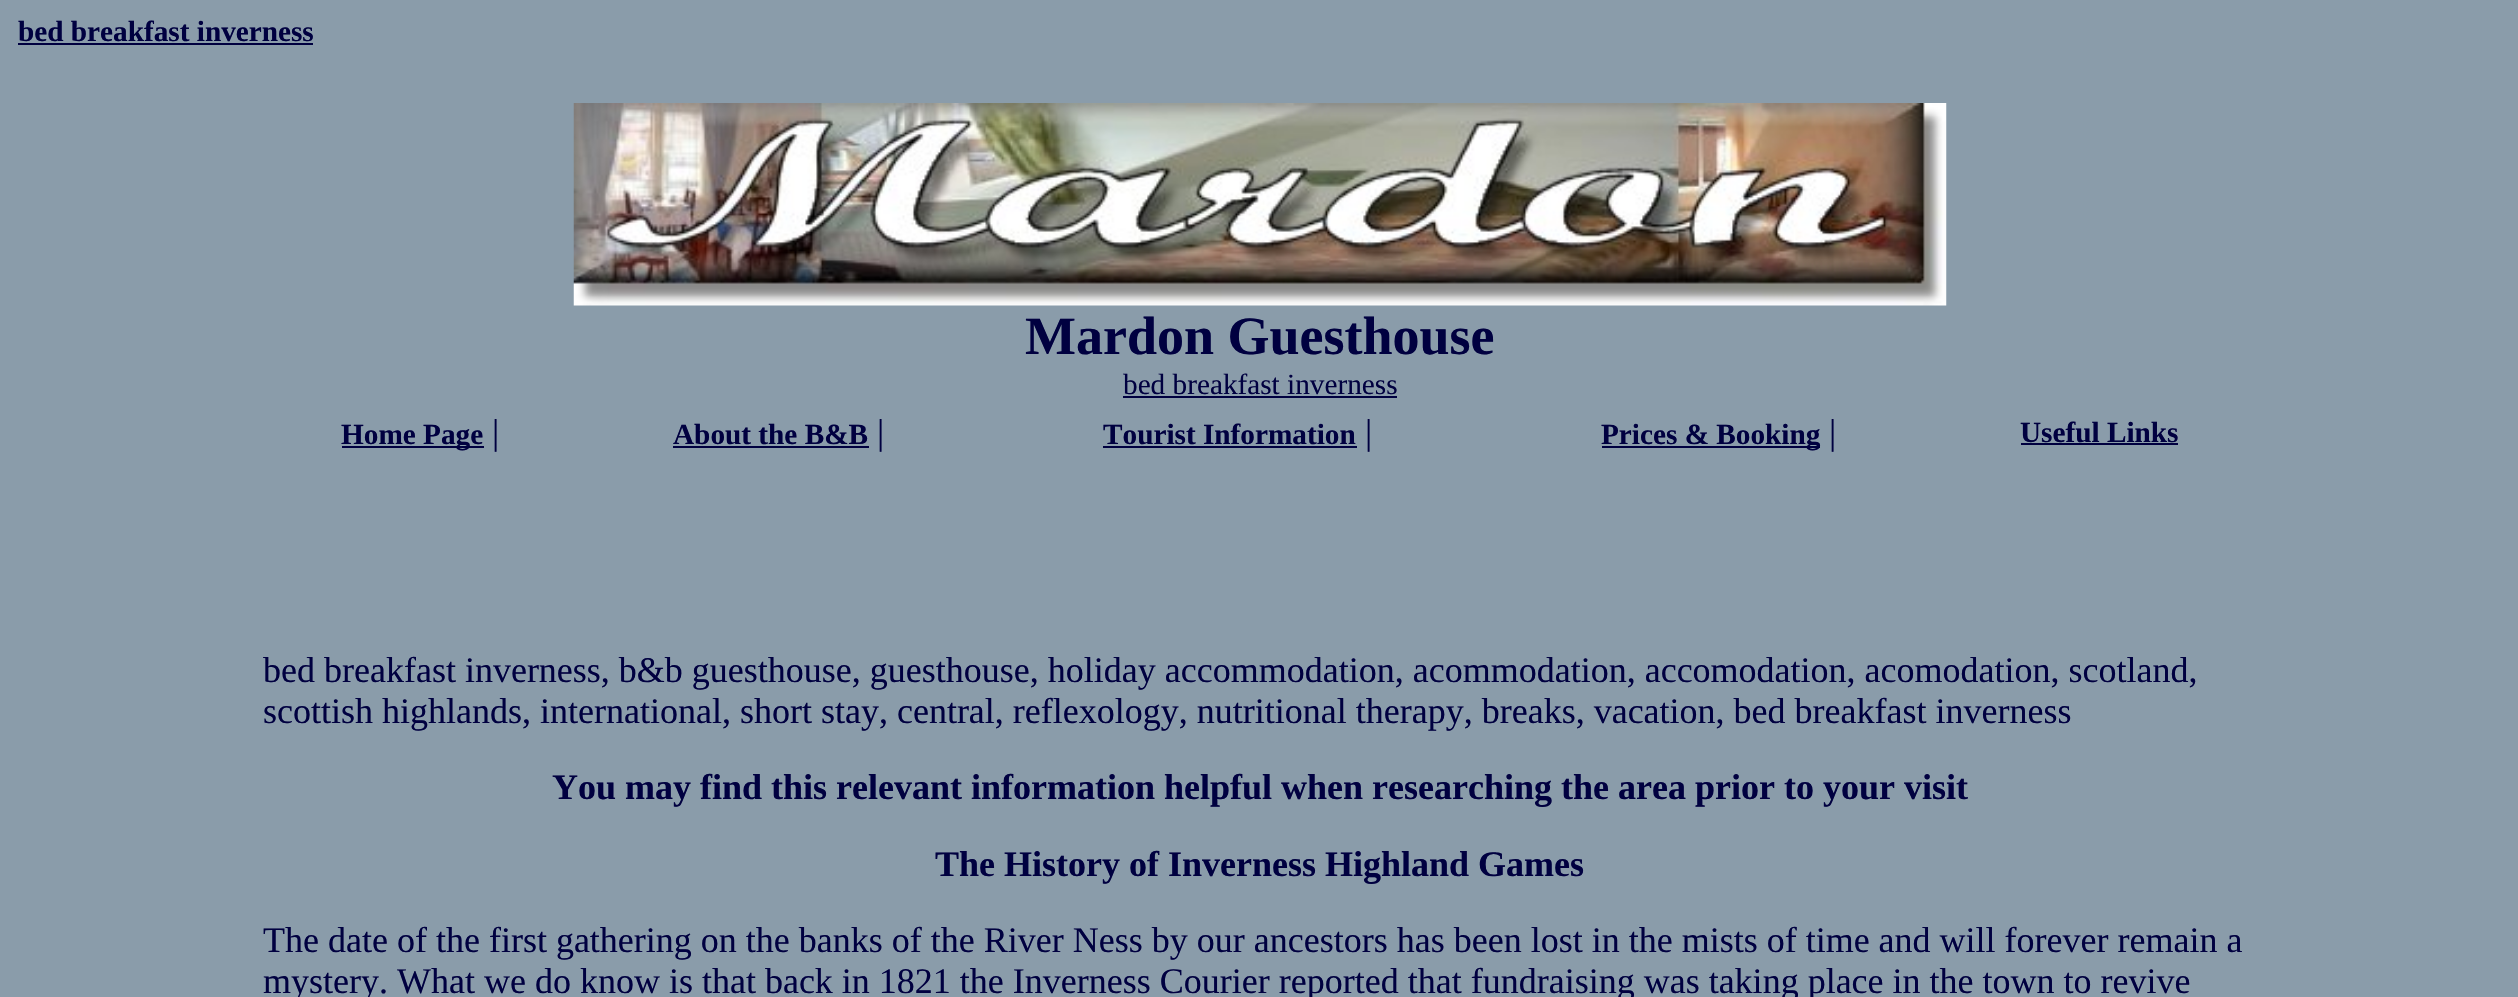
void draw(SkCanvas* canvas) {
	SkPaint paint;
	paint.setAntiAlias(true);
	canvas->clear(0xff8a9caa);
	SkFont f1(fontMgr->matchFamilyStyle("Liberation Serif", SkFontStyle::Bold()), 29.25);
	f1.setSubpixel(true);
	paint.setColor(0xff000040);
	canvas->drawString("bed breakfast inverness", 18, 41, f1, paint);
	canvas->drawRect(SkRect::MakeXYWH(18, 43, 295, 2), paint);
	canvas->drawImageRect(SkImages::DeferredFromEncodedData(SkData::MakeFromFileName("img1.png")), SkRect::MakeXYWH(573, 103, 1374, 203), SkSamplingOptions());
	SkFont f2(fontMgr->matchFamilyStyle("Liberation Serif", SkFontStyle::Bold()), 54);
	f2.setSubpixel(true);
	canvas->drawString("Mardon Guesthouse", 1025, 354, f2, paint);
	SkFont f3(fontMgr->matchFamilyStyle("Liberation Serif", SkFontStyle::Normal()), 29.25);
	f3.setSubpixel(true);
	canvas->drawString("bed breakfast inverness", 1123, 394, f3, paint);
	canvas->drawRect(SkRect::MakeXYWH(1123, 396, 274, 2), paint);
	canvas->drawRect(SkRect::MakeXYWH(342, 446, 142, 2), paint);
	canvas->drawString("Home Page", 341, 444, f1, paint);
	SkFont f4(fontMgr->matchFamilyStyle("Liberation Serif", SkFontStyle::Normal()), 36);
	f4.setSubpixel(true);
	canvas->drawString("|", 492, 444, f4, paint);
	canvas->drawString("About the B&B", 673, 444, f1, paint);
	canvas->drawRect(SkRect::MakeXYWH(673, 446, 196, 2), paint);
	canvas->drawString("|", 877, 444, f4, paint);
	canvas->drawString("Tourist Information", 1103, 444, f1, paint);
	canvas->drawRect(SkRect::MakeXYWH(1103, 446, 254, 2), paint);
	canvas->drawString("|", 1365, 444, f4, paint);
	canvas->drawRect(SkRect::MakeXYWH(1602, 446, 218, 2), paint);
	canvas->drawString("Prices & Booking", 1601, 444, f1, paint);
	canvas->drawString("|", 1829, 444, f4, paint);
	canvas->drawString("Useful Links", 2020, 442, f1, paint);
	canvas->drawRect(SkRect::MakeXYWH(2021, 443, 157, 2), paint);
	canvas->drawString("bed breakfast inverness, b&b guesthouse, guesthouse, holiday accommodation, acommodation, accomodation, acomodation, scotland,", 263, 682, f4, paint);
	canvas->drawString("scottish highlands, international, short stay, central, reflexology, nutritional therapy, breaks, vacation, bed breakfast inverness", 263, 723, f4, paint);
	SkFont f5(fontMgr->matchFamilyStyle("Liberation Serif", SkFontStyle::Bold()), 36);
	f5.setSubpixel(true);
	canvas->drawString("You may find this relevant information helpful when researching the area prior to your visit", 552, 799, f5, paint);
	canvas->drawString("The History of Inverness Highland Games", 935, 876, f5, paint);
	canvas->drawString("The date of the first gathering on the banks of the River Ness by our ancestors has been lost in the mists of time and will forever remain a", 263, 952, f4, paint);
	canvas->drawString("mystery. What we do know is that back in 1821 the Inverness Courier reported that fundraising was taking place in the town to revive", 263, 993, f4, paint);
}
